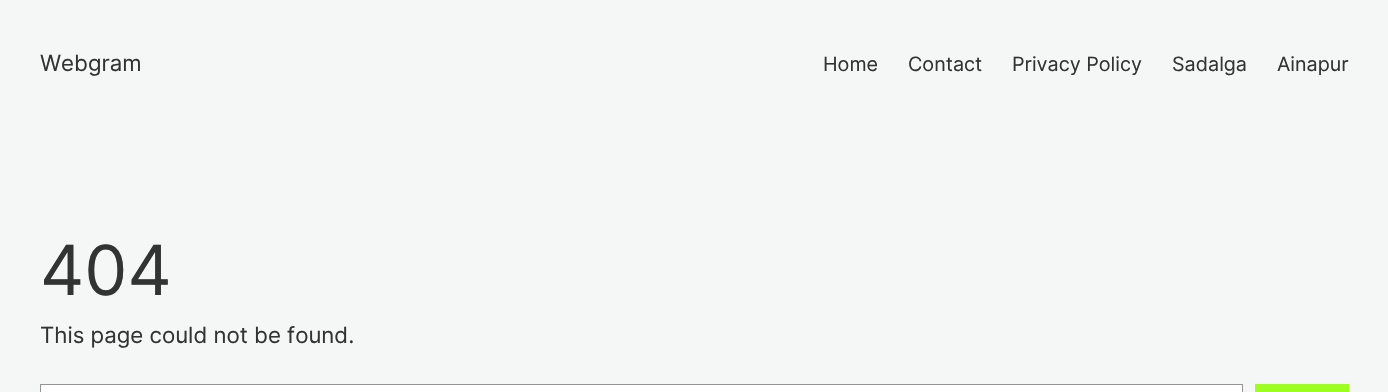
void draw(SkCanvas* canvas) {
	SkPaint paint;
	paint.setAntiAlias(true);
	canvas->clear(0xfff4f7f6);
	SkFont f1(fontMgr->matchFamilyStyle("Inter", SkFontStyle::Normal()), 22.25);
	f1.setSubpixel(true);
	paint.setColor(0xff333333);
	canvas->drawString("Webgram", 40, 71, f1, paint);
	SkFont f2(fontMgr->matchFamilyStyle("Inter", SkFontStyle::Normal()), 19.75);
	f2.setSubpixel(true);
	canvas->drawString("Home", 823, 71, f2, paint);
	canvas->drawString("Contact", 908, 71, f2, paint);
	canvas->drawString("Privacy Policy", 1012, 71, f2, paint);
	canvas->drawString("Sadalga", 1172, 71, f2, paint);
	canvas->drawString("Ainapur", 1277, 71, f2, paint);
	SkFont f3(fontMgr->matchFamilyStyle("Inter", SkFontStyle::Normal()), 69);
	f3.setSubpixel(true);
	canvas->drawString("404", 40, 295, f3, paint);
	canvas->drawString("This page could not be found.", 40, 343, f1, paint);
	paint.setColor(0xffffffff);
	canvas->drawRect(SkRect::MakeXYWH(40.5, 384.5, 1202, 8), paint);
	paint.setStroke(true);
	paint.setStrokeWidth(1);
	paint.setColor(0xff949494);
	canvas->drawRect(SkRect::MakeXYWH(40.5, 384.5, 1202, 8), paint);
	paint.setStroke(false);
	paint.setColor(0xff9dff20);
	canvas->drawRect(SkRect::MakeXYWH(1255, 384, 94, 8), paint);
}
